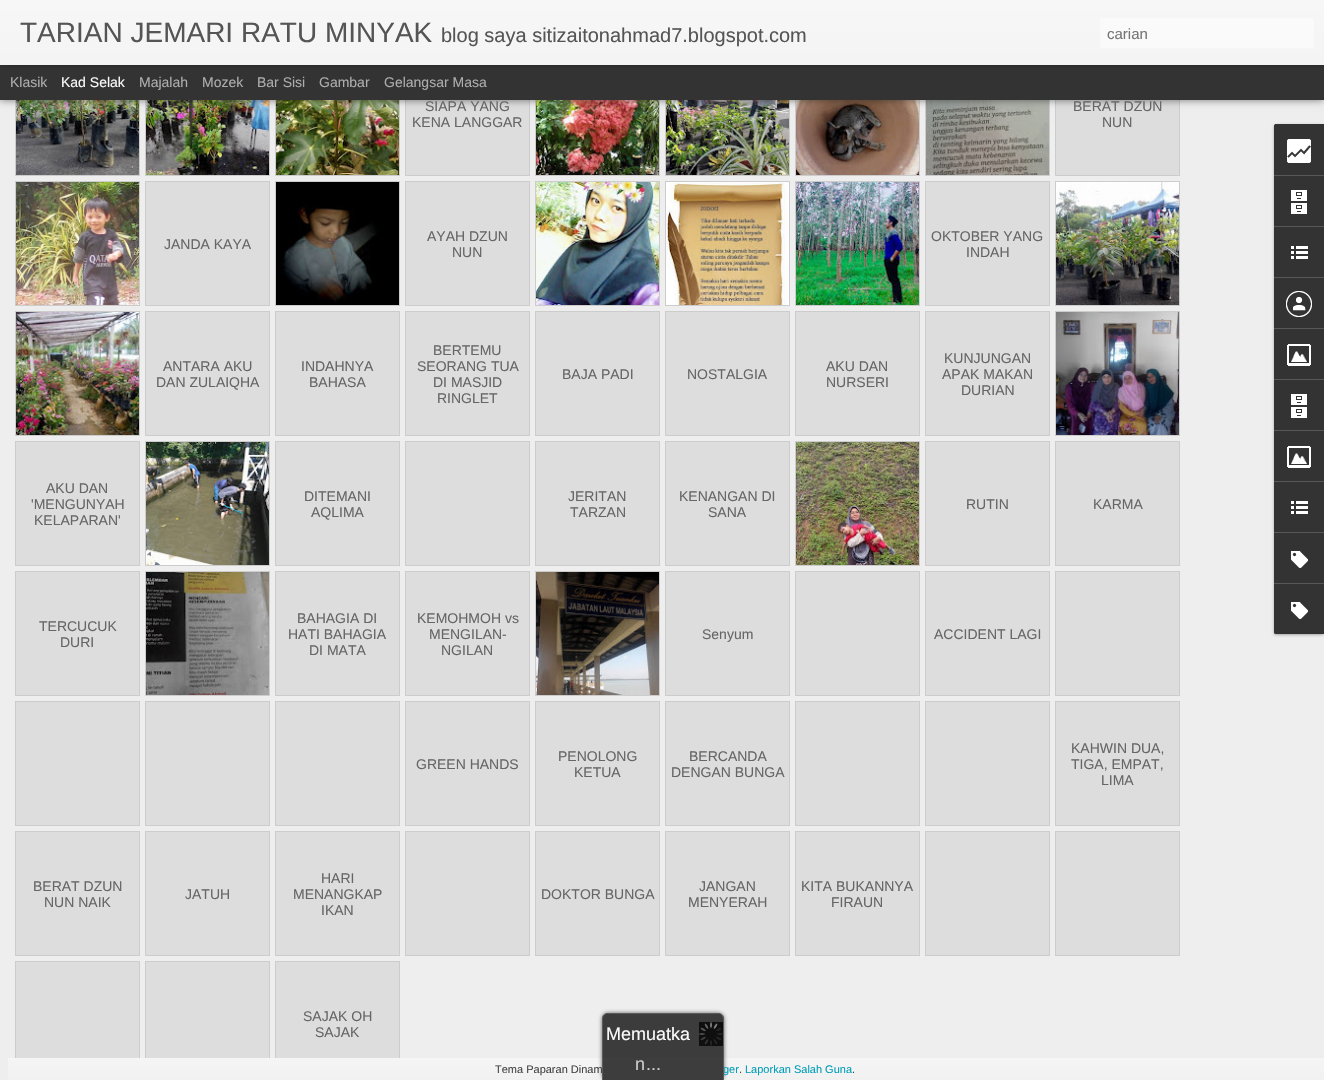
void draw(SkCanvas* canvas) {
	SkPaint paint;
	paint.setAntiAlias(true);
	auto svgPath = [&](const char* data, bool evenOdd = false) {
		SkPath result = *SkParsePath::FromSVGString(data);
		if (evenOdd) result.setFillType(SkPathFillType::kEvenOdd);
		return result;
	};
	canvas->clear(0xffeeeeee);
	paint.setStroke(true);
	paint.setStrokeWidth(1);
	paint.setColor(0xffcccccc);
	canvas->drawRect(SkRect::MakeXYWH(15.5, 51.5, 124, 124), paint);
	canvas->drawImageRect(SkImages::DeferredFromEncodedData(SkData::MakeFromFileName("img1.png")), SkRect::MakeXYWH(16, 100, 123, 75), SkSamplingOptions());
	canvas->drawRect(SkRect::MakeXYWH(145.5, 51.5, 124, 124), paint);
	canvas->drawImageRect(SkImages::DeferredFromEncodedData(SkData::MakeFromFileName("img2.png")), SkRect::MakeXYWH(146, 100, 123, 75), SkSamplingOptions());
	canvas->drawRect(SkRect::MakeXYWH(275.5, 51.5, 124, 124), paint);
	canvas->drawImageRect(SkImages::DeferredFromEncodedData(SkData::MakeFromFileName("img3.png")), SkRect::MakeXYWH(276, 100, 123, 75), SkSamplingOptions());
	canvas->drawRect(SkRect::MakeXYWH(405.5, 51.5, 124, 124), paint);
	paint.setStroke(false);
	paint.setColor(0xffdddddd);
	canvas->drawRect(SkRect::MakeXYWH(406, 100, 123, 75), paint);
	paint.setStroke(true);
	paint.setColor(0xffcccccc);
	canvas->drawRect(SkRect::MakeXYWH(535.5, 51.5, 124, 124), paint);
	canvas->drawImageRect(SkImages::DeferredFromEncodedData(SkData::MakeFromFileName("img4.png")), SkRect::MakeXYWH(536, 100, 123, 75), SkSamplingOptions());
	canvas->drawRect(SkRect::MakeXYWH(665.5, 51.5, 124, 124), paint);
	canvas->drawImageRect(SkImages::DeferredFromEncodedData(SkData::MakeFromFileName("img5.png")), SkRect::MakeXYWH(666, 100, 123, 75), SkSamplingOptions());
	canvas->drawRect(SkRect::MakeXYWH(795.5, 51.5, 124, 124), paint);
	canvas->drawImageRect(SkImages::DeferredFromEncodedData(SkData::MakeFromFileName("img6.png")), SkRect::MakeXYWH(796, 100, 123, 75), SkSamplingOptions());
	canvas->drawRect(SkRect::MakeXYWH(925.5, 51.5, 124, 124), paint);
	canvas->drawImageRect(SkImages::DeferredFromEncodedData(SkData::MakeFromFileName("img7.png")), SkRect::MakeXYWH(926, 100, 123, 75), SkSamplingOptions());
	canvas->drawRect(SkRect::MakeXYWH(1055.5, 51.5, 124, 124), paint);
	paint.setStroke(false);
	paint.setColor(0xffdddddd);
	canvas->drawRect(SkRect::MakeXYWH(1056, 100, 123, 75), paint);
	paint.setColor(0x80000000);
	paint.setMaskFilter(SkMaskFilter::MakeBlur(kNormal_SkBlurStyle, 4));
	canvas->drawRect(SkRect::MakeXYWH(0, 65, 1324, 35), paint);
	paint.setMaskFilter(nullptr);
	paint.setColor(0xff333333);
	canvas->drawRect(SkRect::MakeXYWH(0, 65, 1324, 35), paint);
	paint.setColor(0x4d000000);
	paint.setMaskFilter(SkMaskFilter::MakeBlur(kNormal_SkBlurStyle, 2.5));
	canvas->drawRect(SkRect::MakeXYWH(0, 0, 1324, 65), paint);
	paint.setMaskFilter(nullptr);
	{
		const SkColor colors[] = {0xfff7f7f7, 0xfff4f4f4};
		const float stops[] = {0, 1};
		const SkPoint ends[] = {{0, 0}, {0, 65}};
		paint.setShader(SkGradientShader::MakeLinear(ends, colors, stops, 2, SkTileMode::kClamp));
		paint.setAlpha(255);
	}
	canvas->drawRect(SkRect::MakeXYWH(0, 0, 1324, 65), paint);
	SkFont f1(fontMgr->matchFamilyStyle("Liberation Sans", SkFontStyle::Normal()), 28);
	f1.setSubpixel(true);
	paint.setShader(nullptr);
	paint.setColor(0xff555555);
	canvas->drawString("TARIAN JEMARI RATU MINYAK", 20, 42, f1, paint);
	SkFont f2(fontMgr->matchFamilyStyle("Liberation Sans", SkFontStyle::Normal()), 20);
	f2.setSubpixel(true);
	canvas->drawString("blog saya sitizaitonahmad7.blogspot.com", 441, 42, f2, paint);
	paint.setColor(0xfffafafa);
	canvas->drawRoundRect(SkRect::MakeXYWH(1100, 18, 214, 30), 3, 3, paint);
	SkFont f3(fontMgr->matchFamilyStyle("Liberation Sans", SkFontStyle::Normal()), 15);
	f3.setSubpixel(true);
	paint.setColor(0xff757575);
	canvas->drawString("carian", 1107, 39, f3, paint);
	SkFont f4(fontMgr->matchFamilyStyle("Liberation Sans", SkFontStyle::Normal()), 14);
	f4.setSubpixel(true);
	paint.setColor(0xffadadad);
	canvas->drawString("Klasik", 10, 87, f4, paint);
	paint.setColor(0xfffbfbfb);
	canvas->drawString("Kad Selak", 61, 87, f4, paint);
	paint.setColor(0xffadadad);
	canvas->drawString("Majalah", 139, 87, f4, paint);
	canvas->drawString("Mozek", 202, 87, f4, paint);
	canvas->drawString("Bar Sisi", 257, 87, f4, paint);
	canvas->drawString("Gambar", 319, 87, f4, paint);
	canvas->drawString("Gelangsar Masa", 384, 87, f4, paint);
	paint.setColor(0xff666666);
	canvas->drawString("SIAPA YANG", 425, 111, f4, paint);
	canvas->drawString("KENA LANGGAR", 412, 127, f4, paint);
	canvas->drawString("BERAT DZUN", 1073, 111, f4, paint);
	canvas->drawString("NUN", 1102, 127, f4, paint);
	paint.setStroke(true);
	paint.setColor(0xffcccccc);
	canvas->drawRect(SkRect::MakeXYWH(15.5, 181.5, 124, 124), paint);
	canvas->drawImageRect(SkImages::DeferredFromEncodedData(SkData::MakeFromFileName("img8.png")), SkRect::MakeXYWH(16, 182, 123, 123), SkSamplingOptions());
	canvas->drawRect(SkRect::MakeXYWH(145.5, 181.5, 124, 124), paint);
	paint.setStroke(false);
	paint.setColor(0xffdddddd);
	canvas->drawRect(SkRect::MakeXYWH(146, 182, 123, 123), paint);
	paint.setColor(0xff666666);
	canvas->drawString("JANDA KAYA", 164, 249, f4, paint);
	paint.setStroke(true);
	paint.setColor(0xffcccccc);
	canvas->drawRect(SkRect::MakeXYWH(275.5, 181.5, 124, 124), paint);
	canvas->drawImageRect(SkImages::DeferredFromEncodedData(SkData::MakeFromFileName("img9.png")), SkRect::MakeXYWH(276, 182, 123, 123), SkSamplingOptions());
	canvas->drawRect(SkRect::MakeXYWH(405.5, 181.5, 124, 124), paint);
	paint.setStroke(false);
	paint.setColor(0xffdddddd);
	canvas->drawRect(SkRect::MakeXYWH(406, 182, 123, 123), paint);
	paint.setColor(0xff666666);
	canvas->drawString("AYAH DZUN", 427, 241, f4, paint);
	canvas->drawString("NUN", 452, 257, f4, paint);
	paint.setStroke(true);
	paint.setColor(0xffcccccc);
	canvas->drawRect(SkRect::MakeXYWH(535.5, 181.5, 124, 124), paint);
	canvas->drawImageRect(SkImages::DeferredFromEncodedData(SkData::MakeFromFileName("img10.png")), SkRect::MakeXYWH(536, 182, 123, 123), SkSamplingOptions());
	canvas->drawRect(SkRect::MakeXYWH(665.5, 181.5, 124, 124), paint);
	canvas->drawImageRect(SkImages::DeferredFromEncodedData(SkData::MakeFromFileName("img11.png")), SkRect::MakeXYWH(666, 182, 123, 123), SkSamplingOptions());
	canvas->drawRect(SkRect::MakeXYWH(795.5, 181.5, 124, 124), paint);
	canvas->drawImageRect(SkImages::DeferredFromEncodedData(SkData::MakeFromFileName("img12.png")), SkRect::MakeXYWH(796, 182, 123, 123), SkSamplingOptions());
	canvas->drawRect(SkRect::MakeXYWH(925.5, 181.5, 124, 124), paint);
	paint.setStroke(false);
	paint.setColor(0xffdddddd);
	canvas->drawRect(SkRect::MakeXYWH(926, 182, 123, 123), paint);
	paint.setColor(0xff666666);
	canvas->drawString("OKTOBER YANG", 931, 241, f4, paint);
	canvas->drawString("INDAH", 966, 257, f4, paint);
	paint.setStroke(true);
	paint.setColor(0xffcccccc);
	canvas->drawRect(SkRect::MakeXYWH(1055.5, 181.5, 124, 124), paint);
	canvas->drawImageRect(SkImages::DeferredFromEncodedData(SkData::MakeFromFileName("img13.png")), SkRect::MakeXYWH(1056, 182, 123, 123), SkSamplingOptions());
	canvas->drawRect(SkRect::MakeXYWH(15.5, 311.5, 124, 124), paint);
	canvas->drawImageRect(SkImages::DeferredFromEncodedData(SkData::MakeFromFileName("img14.png")), SkRect::MakeXYWH(16, 312, 123, 123), SkSamplingOptions());
	canvas->drawRect(SkRect::MakeXYWH(145.5, 311.5, 124, 124), paint);
	paint.setStroke(false);
	paint.setColor(0xffdddddd);
	canvas->drawRect(SkRect::MakeXYWH(146, 312, 123, 123), paint);
	paint.setColor(0xff666666);
	canvas->drawString("ANTARA AKU", 163, 371, f4, paint);
	canvas->drawString("DAN ZULAIQHA", 156, 387, f4, paint);
	paint.setStroke(true);
	paint.setColor(0xffcccccc);
	canvas->drawRect(SkRect::MakeXYWH(275.5, 311.5, 124, 124), paint);
	paint.setStroke(false);
	paint.setColor(0xffdddddd);
	canvas->drawRect(SkRect::MakeXYWH(276, 312, 123, 123), paint);
	paint.setColor(0xff666666);
	canvas->drawString("INDAHNYA", 301, 371, f4, paint);
	canvas->drawString("BAHASA", 309, 387, f4, paint);
	paint.setStroke(true);
	paint.setColor(0xffcccccc);
	canvas->drawRect(SkRect::MakeXYWH(405.5, 311.5, 124, 124), paint);
	paint.setStroke(false);
	paint.setColor(0xffdddddd);
	canvas->drawRect(SkRect::MakeXYWH(406, 312, 123, 123), paint);
	paint.setColor(0xff666666);
	canvas->drawString("BERTEMU", 433, 355, f4, paint);
	canvas->drawString("SEORANG TUA", 417, 371, f4, paint);
	canvas->drawString("DI MASJID", 433, 387, f4, paint);
	canvas->drawString("RINGLET", 437, 403, f4, paint);
	paint.setStroke(true);
	paint.setColor(0xffcccccc);
	canvas->drawRect(SkRect::MakeXYWH(535.5, 311.5, 124, 124), paint);
	paint.setStroke(false);
	paint.setColor(0xffdddddd);
	canvas->drawRect(SkRect::MakeXYWH(536, 312, 123, 123), paint);
	paint.setColor(0xff666666);
	canvas->drawString("BAJA PADI", 562, 379, f4, paint);
	paint.setStroke(true);
	paint.setColor(0xffcccccc);
	canvas->drawRect(SkRect::MakeXYWH(665.5, 311.5, 124, 124), paint);
	paint.setStroke(false);
	paint.setColor(0xffdddddd);
	canvas->drawRect(SkRect::MakeXYWH(666, 312, 123, 123), paint);
	paint.setColor(0xff666666);
	canvas->drawString("NOSTALGIA", 687, 379, f4, paint);
	paint.setStroke(true);
	paint.setColor(0xffcccccc);
	canvas->drawRect(SkRect::MakeXYWH(795.5, 311.5, 124, 124), paint);
	paint.setStroke(false);
	paint.setColor(0xffdddddd);
	canvas->drawRect(SkRect::MakeXYWH(796, 312, 123, 123), paint);
	paint.setColor(0xff666666);
	canvas->drawString("AKU DAN", 826, 371, f4, paint);
	canvas->drawString("NURSERI", 826, 387, f4, paint);
	paint.setStroke(true);
	paint.setColor(0xffcccccc);
	canvas->drawRect(SkRect::MakeXYWH(925.5, 311.5, 124, 124), paint);
	paint.setStroke(false);
	paint.setColor(0xffdddddd);
	canvas->drawRect(SkRect::MakeXYWH(926, 312, 123, 123), paint);
	paint.setColor(0xff666666);
	canvas->drawString("KUNJUNGAN", 944, 363, f4, paint);
	canvas->drawString("APAK MAKAN", 942, 379, f4, paint);
	canvas->drawString("DURIAN", 961, 395, f4, paint);
	paint.setStroke(true);
	paint.setColor(0xffcccccc);
	canvas->drawRect(SkRect::MakeXYWH(1055.5, 311.5, 124, 124), paint);
	canvas->drawImageRect(SkImages::DeferredFromEncodedData(SkData::MakeFromFileName("img15.png")), SkRect::MakeXYWH(1056, 312, 123, 123), SkSamplingOptions());
	canvas->drawRect(SkRect::MakeXYWH(15.5, 441.5, 124, 124), paint);
	paint.setStroke(false);
	paint.setColor(0xffdddddd);
	canvas->drawRect(SkRect::MakeXYWH(16, 442, 123, 123), paint);
	paint.setColor(0xff666666);
	canvas->drawString("AKU DAN", 46, 493, f4, paint);
	canvas->drawString("'MENGUNYAH", 31, 509, f4, paint);
	canvas->drawString("KELAPARAN'", 34, 525, f4, paint);
	paint.setStroke(true);
	paint.setColor(0xffcccccc);
	canvas->drawRect(SkRect::MakeXYWH(145.5, 441.5, 124, 124), paint);
	canvas->drawImageRect(SkImages::DeferredFromEncodedData(SkData::MakeFromFileName("img16.png")), SkRect::MakeXYWH(146, 442, 123, 123), SkSamplingOptions());
	canvas->drawRect(SkRect::MakeXYWH(275.5, 441.5, 124, 124), paint);
	paint.setStroke(false);
	paint.setColor(0xffdddddd);
	canvas->drawRect(SkRect::MakeXYWH(276, 442, 123, 123), paint);
	paint.setColor(0xff666666);
	canvas->drawString("DITEMANI", 304, 501, f4, paint);
	canvas->drawString("AQLIMA", 311, 517, f4, paint);
	paint.setStroke(true);
	paint.setColor(0xffcccccc);
	canvas->drawRect(SkRect::MakeXYWH(405.5, 441.5, 124, 124), paint);
	paint.setStroke(false);
	paint.setColor(0xffdddddd);
	canvas->drawRect(SkRect::MakeXYWH(406, 442, 123, 123), paint);
	paint.setStroke(true);
	paint.setColor(0xffcccccc);
	canvas->drawRect(SkRect::MakeXYWH(535.5, 441.5, 124, 124), paint);
	paint.setStroke(false);
	paint.setColor(0xffdddddd);
	canvas->drawRect(SkRect::MakeXYWH(536, 442, 123, 123), paint);
	paint.setColor(0xff666666);
	canvas->drawString("JERITAN", 568, 501, f4, paint);
	canvas->drawString("TARZAN", 570, 517, f4, paint);
	paint.setStroke(true);
	paint.setColor(0xffcccccc);
	canvas->drawRect(SkRect::MakeXYWH(665.5, 441.5, 124, 124), paint);
	paint.setStroke(false);
	paint.setColor(0xffdddddd);
	canvas->drawRect(SkRect::MakeXYWH(666, 442, 123, 123), paint);
	paint.setColor(0xff666666);
	canvas->drawString("KENANGAN DI", 679, 501, f4, paint);
	canvas->drawString("SANA", 708, 517, f4, paint);
	paint.setStroke(true);
	paint.setColor(0xffcccccc);
	canvas->drawRect(SkRect::MakeXYWH(795.5, 441.5, 124, 124), paint);
	canvas->drawImageRect(SkImages::DeferredFromEncodedData(SkData::MakeFromFileName("img17.png")), SkRect::MakeXYWH(796, 442, 123, 123), SkSamplingOptions());
	canvas->drawRect(SkRect::MakeXYWH(925.5, 441.5, 124, 124), paint);
	paint.setStroke(false);
	paint.setColor(0xffdddddd);
	canvas->drawRect(SkRect::MakeXYWH(926, 442, 123, 123), paint);
	paint.setColor(0xff666666);
	canvas->drawString("RUTIN", 966, 509, f4, paint);
	paint.setStroke(true);
	paint.setColor(0xffcccccc);
	canvas->drawRect(SkRect::MakeXYWH(1055.5, 441.5, 124, 124), paint);
	paint.setStroke(false);
	paint.setColor(0xffdddddd);
	canvas->drawRect(SkRect::MakeXYWH(1056, 442, 123, 123), paint);
	paint.setColor(0xff666666);
	canvas->drawString("KARMA", 1093, 509, f4, paint);
	paint.setStroke(true);
	paint.setColor(0xffcccccc);
	canvas->drawRect(SkRect::MakeXYWH(15.5, 571.5, 124, 124), paint);
	paint.setStroke(false);
	paint.setColor(0xffdddddd);
	canvas->drawRect(SkRect::MakeXYWH(16, 572, 123, 123), paint);
	paint.setColor(0xff666666);
	canvas->drawString("TERCUCUK", 39, 631, f4, paint);
	canvas->drawString("DURI", 60, 647, f4, paint);
	paint.setStroke(true);
	paint.setColor(0xffcccccc);
	canvas->drawRect(SkRect::MakeXYWH(145.5, 571.5, 124, 124), paint);
	canvas->drawImageRect(SkImages::DeferredFromEncodedData(SkData::MakeFromFileName("img18.png")), SkRect::MakeXYWH(146, 572, 123, 123), SkSamplingOptions());
	canvas->drawRect(SkRect::MakeXYWH(275.5, 571.5, 124, 124), paint);
	paint.setStroke(false);
	paint.setColor(0xffdddddd);
	canvas->drawRect(SkRect::MakeXYWH(276, 572, 123, 123), paint);
	paint.setColor(0xff666666);
	canvas->drawString("BAHAGIA DI", 297, 623, f4, paint);
	canvas->drawString("HATI BAHAGIA", 288, 639, f4, paint);
	canvas->drawString("DI MATA", 309, 655, f4, paint);
	paint.setStroke(true);
	paint.setColor(0xffcccccc);
	canvas->drawRect(SkRect::MakeXYWH(405.5, 571.5, 124, 124), paint);
	paint.setStroke(false);
	paint.setColor(0xffdddddd);
	canvas->drawRect(SkRect::MakeXYWH(406, 572, 123, 123), paint);
	paint.setColor(0xff666666);
	canvas->drawString("KEMOHMOH vs", 417, 623, f4, paint);
	canvas->drawString("MENGILAN-", 429, 639, f4, paint);
	canvas->drawString("NGILAN", 441, 655, f4, paint);
	paint.setStroke(true);
	paint.setColor(0xffcccccc);
	canvas->drawRect(SkRect::MakeXYWH(535.5, 571.5, 124, 124), paint);
	canvas->drawImageRect(SkImages::DeferredFromEncodedData(SkData::MakeFromFileName("img19.png")), SkRect::MakeXYWH(536, 572, 123, 123), SkSamplingOptions());
	canvas->drawRect(SkRect::MakeXYWH(665.5, 571.5, 124, 124), paint);
	paint.setStroke(false);
	paint.setColor(0xffdddddd);
	canvas->drawRect(SkRect::MakeXYWH(666, 572, 123, 123), paint);
	paint.setColor(0xff666666);
	canvas->drawString("Senyum", 702, 639, f4, paint);
	paint.setStroke(true);
	paint.setColor(0xffcccccc);
	canvas->drawRect(SkRect::MakeXYWH(795.5, 571.5, 124, 124), paint);
	paint.setStroke(false);
	paint.setColor(0xffdddddd);
	canvas->drawRect(SkRect::MakeXYWH(796, 572, 123, 123), paint);
	paint.setStroke(true);
	paint.setColor(0xffcccccc);
	canvas->drawRect(SkRect::MakeXYWH(925.5, 571.5, 124, 124), paint);
	paint.setStroke(false);
	paint.setColor(0xffdddddd);
	canvas->drawRect(SkRect::MakeXYWH(926, 572, 123, 123), paint);
	paint.setColor(0xff666666);
	canvas->drawString("ACCIDENT LAGI", 934, 639, f4, paint);
	paint.setStroke(true);
	paint.setColor(0xffcccccc);
	canvas->drawRect(SkRect::MakeXYWH(1055.5, 571.5, 124, 124), paint);
	paint.setStroke(false);
	paint.setColor(0xffdddddd);
	canvas->drawRect(SkRect::MakeXYWH(1056, 572, 123, 123), paint);
	paint.setStroke(true);
	paint.setColor(0xffcccccc);
	canvas->drawRect(SkRect::MakeXYWH(15.5, 701.5, 124, 124), paint);
	paint.setStroke(false);
	paint.setColor(0xffdddddd);
	canvas->drawRect(SkRect::MakeXYWH(16, 702, 123, 123), paint);
	paint.setStroke(true);
	paint.setColor(0xffcccccc);
	canvas->drawRect(SkRect::MakeXYWH(145.5, 701.5, 124, 124), paint);
	paint.setStroke(false);
	paint.setColor(0xffdddddd);
	canvas->drawRect(SkRect::MakeXYWH(146, 702, 123, 123), paint);
	paint.setStroke(true);
	paint.setColor(0xffcccccc);
	canvas->drawRect(SkRect::MakeXYWH(275.5, 701.5, 124, 124), paint);
	paint.setStroke(false);
	paint.setColor(0xffdddddd);
	canvas->drawRect(SkRect::MakeXYWH(276, 702, 123, 123), paint);
	paint.setStroke(true);
	paint.setColor(0xffcccccc);
	canvas->drawRect(SkRect::MakeXYWH(405.5, 701.5, 124, 124), paint);
	paint.setStroke(false);
	paint.setColor(0xffdddddd);
	canvas->drawRect(SkRect::MakeXYWH(406, 702, 123, 123), paint);
	paint.setColor(0xff666666);
	canvas->drawString("GREEN HANDS", 416, 769, f4, paint);
	paint.setStroke(true);
	paint.setColor(0xffcccccc);
	canvas->drawRect(SkRect::MakeXYWH(535.5, 701.5, 124, 124), paint);
	paint.setStroke(false);
	paint.setColor(0xffdddddd);
	canvas->drawRect(SkRect::MakeXYWH(536, 702, 123, 123), paint);
	paint.setColor(0xff666666);
	canvas->drawString("PENOLONG", 558, 761, f4, paint);
	canvas->drawString("KETUA", 574, 777, f4, paint);
	paint.setStroke(true);
	paint.setColor(0xffcccccc);
	canvas->drawRect(SkRect::MakeXYWH(665.5, 701.5, 124, 124), paint);
	paint.setStroke(false);
	paint.setColor(0xffdddddd);
	canvas->drawRect(SkRect::MakeXYWH(666, 702, 123, 123), paint);
	paint.setColor(0xff666666);
	canvas->drawString("BERCANDA", 689, 761, f4, paint);
	canvas->drawString("DENGAN BUNGA", 671, 777, f4, paint);
	paint.setStroke(true);
	paint.setColor(0xffcccccc);
	canvas->drawRect(SkRect::MakeXYWH(795.5, 701.5, 124, 124), paint);
	paint.setStroke(false);
	paint.setColor(0xffdddddd);
	canvas->drawRect(SkRect::MakeXYWH(796, 702, 123, 123), paint);
	paint.setStroke(true);
	paint.setColor(0xffcccccc);
	canvas->drawRect(SkRect::MakeXYWH(925.5, 701.5, 124, 124), paint);
	paint.setStroke(false);
	paint.setColor(0xffdddddd);
	canvas->drawRect(SkRect::MakeXYWH(926, 702, 123, 123), paint);
	paint.setStroke(true);
	paint.setColor(0xffcccccc);
	canvas->drawRect(SkRect::MakeXYWH(1055.5, 701.5, 124, 124), paint);
	paint.setStroke(false);
	paint.setColor(0xffdddddd);
	canvas->drawRect(SkRect::MakeXYWH(1056, 702, 123, 123), paint);
	paint.setColor(0xff666666);
	canvas->drawString("KAHWIN DUA,", 1071, 753, f4, paint);
	canvas->drawString("TIGA, EMPAT,", 1071, 769, f4, paint);
	canvas->drawString("LIMA", 1101, 785, f4, paint);
	paint.setStroke(true);
	paint.setColor(0xffcccccc);
	canvas->drawRect(SkRect::MakeXYWH(15.5, 831.5, 124, 124), paint);
	paint.setStroke(false);
	paint.setColor(0xffdddddd);
	canvas->drawRect(SkRect::MakeXYWH(16, 832, 123, 123), paint);
	paint.setColor(0xff666666);
	canvas->drawString("BERAT DZUN", 33, 891, f4, paint);
	canvas->drawString("NUN NAIK", 44, 907, f4, paint);
	paint.setStroke(true);
	paint.setColor(0xffcccccc);
	canvas->drawRect(SkRect::MakeXYWH(145.5, 831.5, 124, 124), paint);
	paint.setStroke(false);
	paint.setColor(0xffdddddd);
	canvas->drawRect(SkRect::MakeXYWH(146, 832, 123, 123), paint);
	paint.setColor(0xff666666);
	canvas->drawString("JATUH", 185, 899, f4, paint);
	paint.setStroke(true);
	paint.setColor(0xffcccccc);
	canvas->drawRect(SkRect::MakeXYWH(275.5, 831.5, 124, 124), paint);
	paint.setStroke(false);
	paint.setColor(0xffdddddd);
	canvas->drawRect(SkRect::MakeXYWH(276, 832, 123, 123), paint);
	paint.setColor(0xff666666);
	canvas->drawString("HARI", 321, 883, f4, paint);
	canvas->drawString("MENANGKAP", 293, 899, f4, paint);
	canvas->drawString("IKAN", 321, 915, f4, paint);
	paint.setStroke(true);
	paint.setColor(0xffcccccc);
	canvas->drawRect(SkRect::MakeXYWH(405.5, 831.5, 124, 124), paint);
	paint.setStroke(false);
	paint.setColor(0xffdddddd);
	canvas->drawRect(SkRect::MakeXYWH(406, 832, 123, 123), paint);
	paint.setStroke(true);
	paint.setColor(0xffcccccc);
	canvas->drawRect(SkRect::MakeXYWH(535.5, 831.5, 124, 124), paint);
	paint.setStroke(false);
	paint.setColor(0xffdddddd);
	canvas->drawRect(SkRect::MakeXYWH(536, 832, 123, 123), paint);
	paint.setColor(0xff666666);
	canvas->drawString("DOKTOR BUNGA", 541, 899, f4, paint);
	paint.setStroke(true);
	paint.setColor(0xffcccccc);
	canvas->drawRect(SkRect::MakeXYWH(665.5, 831.5, 124, 124), paint);
	paint.setStroke(false);
	paint.setColor(0xffdddddd);
	canvas->drawRect(SkRect::MakeXYWH(666, 832, 123, 123), paint);
	paint.setColor(0xff666666);
	canvas->drawString("JANGAN", 699, 891, f4, paint);
	canvas->drawString("MENYERAH", 688, 907, f4, paint);
	paint.setStroke(true);
	paint.setColor(0xffcccccc);
	canvas->drawRect(SkRect::MakeXYWH(795.5, 831.5, 124, 124), paint);
	paint.setStroke(false);
	paint.setColor(0xffdddddd);
	canvas->drawRect(SkRect::MakeXYWH(796, 832, 123, 123), paint);
	paint.setColor(0xff666666);
	canvas->drawString("KITA BUKANNYA", 801, 891, f4, paint);
	canvas->drawString("FIRAUN", 831, 907, f4, paint);
	paint.setStroke(true);
	paint.setColor(0xffcccccc);
	canvas->drawRect(SkRect::MakeXYWH(925.5, 831.5, 124, 124), paint);
	paint.setStroke(false);
	paint.setColor(0xffdddddd);
	canvas->drawRect(SkRect::MakeXYWH(926, 832, 123, 123), paint);
	paint.setStroke(true);
	paint.setColor(0xffcccccc);
	canvas->drawRect(SkRect::MakeXYWH(1055.5, 831.5, 124, 124), paint);
	paint.setStroke(false);
	paint.setColor(0xffdddddd);
	canvas->drawRect(SkRect::MakeXYWH(1056, 832, 123, 123), paint);
	paint.setStroke(true);
	paint.setColor(0xffcccccc);
	canvas->drawRect(SkRect::MakeXYWH(15.5, 961.5, 124, 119), paint);
	paint.setStroke(false);
	paint.setColor(0xffdddddd);
	canvas->drawRect(SkRect::MakeXYWH(16, 962, 123, 96), paint);
	paint.setStroke(true);
	paint.setColor(0xffcccccc);
	canvas->drawRect(SkRect::MakeXYWH(145.5, 961.5, 124, 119), paint);
	paint.setStroke(false);
	paint.setColor(0xffdddddd);
	canvas->drawRect(SkRect::MakeXYWH(146, 962, 123, 96), paint);
	paint.setStroke(true);
	paint.setColor(0xffcccccc);
	canvas->drawRect(SkRect::MakeXYWH(275.5, 961.5, 124, 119), paint);
	paint.setStroke(false);
	paint.setColor(0xffdddddd);
	canvas->drawRect(SkRect::MakeXYWH(276, 962, 123, 96), paint);
	paint.setColor(0xff666666);
	canvas->drawString("SAJAK OH", 303, 1021, f4, paint);
	canvas->drawString("SAJAK", 315, 1037, f4, paint);
	paint.setColor(0x4d000000);
	paint.setMaskFilter(SkMaskFilter::MakeBlur(kNormal_SkBlurStyle, 1.5));
	canvas->drawRoundRect(SkRect::MakeXYWH(1274, 125, 50, 510), 2, 2, paint);
	paint.setMaskFilter(nullptr);
	paint.setColor(0xff333333);
	canvas->drawPath(svgPath("M1276 124H1324V634H1276C1275 634 1274 633 1274 632V126C1274 125 1275 124 1276 124Z"), paint);
	canvas->drawPath(svgPath("M1276 124H1324V175H1274V126C1274 125 1275 124 1276 124Z"), paint);
	canvas->drawImageRect(SkImages::DeferredFromEncodedData(SkData::MakeFromFileName("img20.png")), SkRect::MakeXYWH(1287, 139, 24, 24), SkSamplingOptions());
	paint.setColor(0xff585858);
	canvas->drawRect(SkRect::MakeXYWH(1274, 175, 50, 1), paint);
	canvas->drawImageRect(SkImages::DeferredFromEncodedData(SkData::MakeFromFileName("img21.png")), SkRect::MakeXYWH(1291, 190, 16, 24), SkSamplingOptions());
	canvas->drawRect(SkRect::MakeXYWH(1274, 226, 50, 1), paint);
	canvas->drawImageRect(SkImages::DeferredFromEncodedData(SkData::MakeFromFileName("img22.png")), SkRect::MakeXYWH(1291, 246, 17, 13), SkSamplingOptions());
	canvas->drawRect(SkRect::MakeXYWH(1274, 277, 50, 1), paint);
	canvas->drawImageRect(SkImages::DeferredFromEncodedData(SkData::MakeFromFileName("img23.png")), SkRect::MakeXYWH(1286, 291, 26, 26), SkSamplingOptions());
	canvas->drawRect(SkRect::MakeXYWH(1274, 328, 50, 1), paint);
	canvas->drawImageRect(SkImages::DeferredFromEncodedData(SkData::MakeFromFileName("img24.png")), SkRect::MakeXYWH(1287, 344, 24, 22), SkSamplingOptions());
	canvas->drawRect(SkRect::MakeXYWH(1274, 379, 50, 1), paint);
	canvas->drawImageRect(SkImages::DeferredFromEncodedData(SkData::MakeFromFileName("img21.png")), SkRect::MakeXYWH(1291, 394, 16, 24), SkSamplingOptions());
	canvas->drawRect(SkRect::MakeXYWH(1274, 430, 50, 1), paint);
	canvas->drawImageRect(SkImages::DeferredFromEncodedData(SkData::MakeFromFileName("img24.png")), SkRect::MakeXYWH(1287, 446, 24, 22), SkSamplingOptions());
	canvas->drawRect(SkRect::MakeXYWH(1274, 481, 50, 1), paint);
	canvas->drawImageRect(SkImages::DeferredFromEncodedData(SkData::MakeFromFileName("img22.png")), SkRect::MakeXYWH(1291, 501, 17, 13), SkSamplingOptions());
	canvas->drawRect(SkRect::MakeXYWH(1274, 532, 50, 1), paint);
	canvas->drawImageRect(SkImages::DeferredFromEncodedData(SkData::MakeFromFileName("img25.png")), SkRect::MakeXYWH(1291, 551, 17, 17), SkSamplingOptions());
	paint.setColor(0xff333333);
	canvas->drawPath(svgPath("M1274 583H1324V634H1276C1275 634 1274 633 1274 632Z"), paint);
	paint.setColor(0xff585858);
	canvas->drawRect(SkRect::MakeXYWH(1274, 583, 50, 1), paint);
	canvas->drawImageRect(SkImages::DeferredFromEncodedData(SkData::MakeFromFileName("img25.png")), SkRect::MakeXYWH(1291, 602, 17, 17), SkSamplingOptions());
	{
		const SkColor colors[] = {0xfff5f5f5, 0xfff1f1f1};
		const float stops[] = {0, 1};
		const SkPoint ends[] = {{675, 1058}, {675, 1080}};
		paint.setShader(SkGradientShader::MakeLinear(ends, colors, stops, 2, SkTileMode::kClamp));
		paint.setAlpha(255);
	}
	canvas->drawRect(SkRect::MakeXYWH(8, 1058, 1316, 22), paint);
	canvas->save();
	canvas->clipPath(svgPath("M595 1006H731V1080H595ZM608 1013H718C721.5 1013 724 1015.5 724 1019V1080H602V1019C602 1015.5 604.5 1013 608 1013Z", true), true);
	paint.setShader(nullptr);
	paint.setColor(0xbf333333);
	paint.setMaskFilter(SkMaskFilter::MakeBlur(kNormal_SkBlurStyle, 2));
	canvas->drawRoundRect(SkRect::MakeXYWH(602, 1013, 122, 67), 6, 6, paint);
	paint.setMaskFilter(nullptr);
	canvas->restore();
	SkFont f5(fontMgr->matchFamilyStyle("Liberation Sans", SkFontStyle::Normal()), 11);
	f5.setSubpixel(true);
	paint.setColor(0xff009eb8);
	canvas->drawString("ger", 723, 1073, f5, paint);
	paint.setColor(0xbf000000);
	canvas->drawPath(svgPath("M608 1013H718C721.5 1013 724 1015.5 724 1019V1080H602V1019C602 1015.5 604.5 1013 608 1013Z"), paint);
	paint.setColor(0xbf666666);
	canvas->drawPath(svgPath("M608 1013H718C721 1013 724 1016 724 1019V1080H602V1019C602 1016 605 1013 608 1013ZM608 1014H718C721 1014 723 1016 723 1019V1080H603V1019C603 1016 605 1014 608 1014Z", true), paint);
	canvas->drawImageRect(SkImages::DeferredFromEncodedData(SkData::MakeFromFileName("img26.png")), SkRect::MakeXYWH(699, 1022, 24, 24), SkSamplingOptions());
	SkFont f6(fontMgr->matchFamilyStyle("Liberation Sans", SkFontStyle::Normal()), 18);
	f6.setSubpixel(true);
	paint.setColor(0xfffbfbfb);
	canvas->drawString("Memuatka", 606, 1040, f6, paint);
	paint.setColor(0xffcdcdcd);
	canvas->drawString("n", 635, 1070, f6, paint);
	canvas->drawString("...", 646, 1070, f6, paint);
	paint.setColor(0xff444444);
	canvas->drawString("Tema Paparan Dinam", 495, 1073, f5, paint);
	canvas->drawString(".", 739, 1073, f5, paint);
	paint.setColor(0xff009eb8);
	canvas->drawString("Laporkan Salah Guna", 745, 1073, f5, paint);
	paint.setColor(0xff444444);
	canvas->drawString(".", 852, 1073, f5, paint);
}
